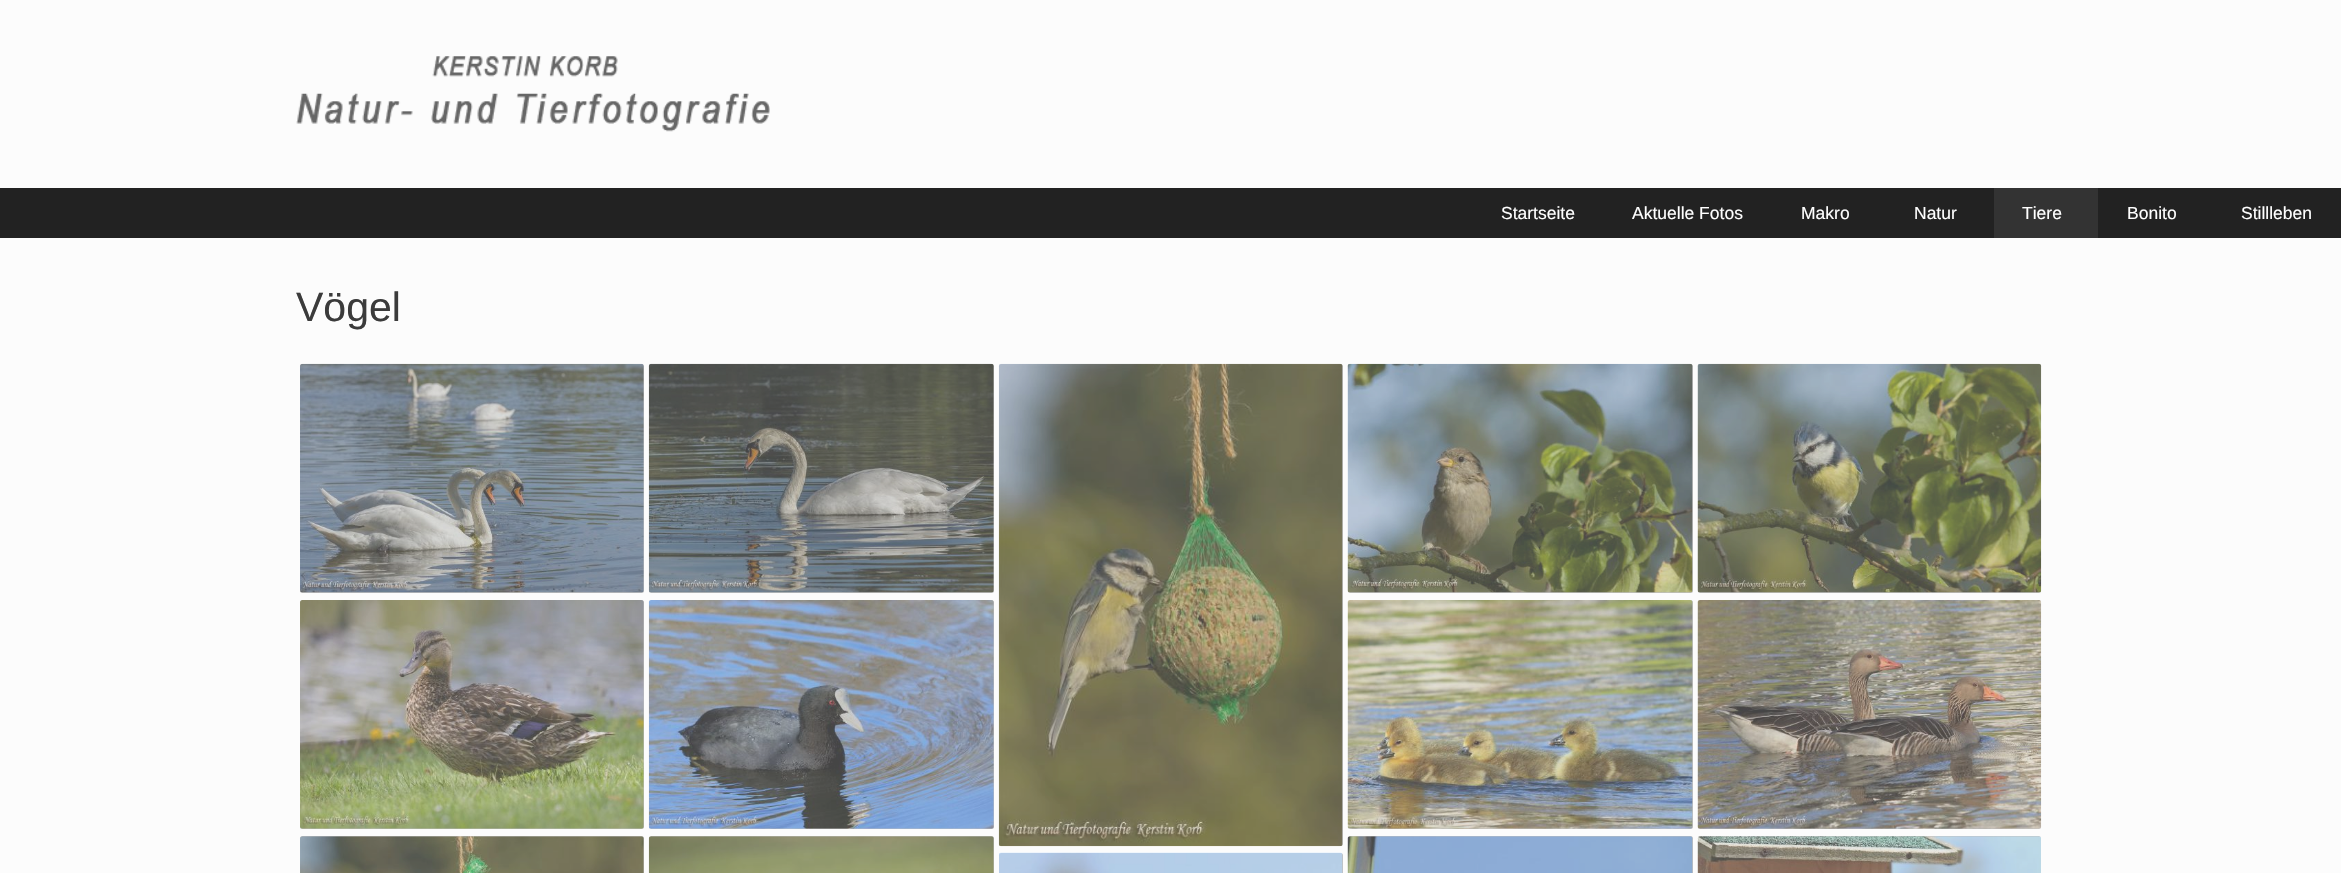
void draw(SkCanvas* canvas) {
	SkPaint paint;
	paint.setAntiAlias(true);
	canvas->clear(0xfffcfcfc);
	canvas->drawImageRect(SkImages::DeferredFromEncodedData(SkData::MakeFromFileName("img1.png")), SkRect::MakeXYWH(296, 56, 474, 76), SkSamplingOptions());
	paint.setColor(0xff222222);
	canvas->drawRect(SkRect::MakeXYWH(0, 188, 2341, 50), paint);
	SkFont f1(fontMgr->matchFamilyStyle("Liberation Sans", SkFontStyle::Normal()), 17.5);
	f1.setSubpixel(true);
	paint.setColor(0xffffffff);
	canvas->drawString("Startseite", 1501, 219, f1, paint);
	canvas->drawString("Aktuelle Fotos", 1632, 219, f1, paint);
	canvas->drawString("Makro", 1801, 219, f1, paint);
	canvas->drawString("Natur", 1914, 219, f1, paint);
	paint.setColor(0xff333333);
	canvas->drawRect(SkRect::MakeXYWH(1994, 188, 104, 50), paint);
	paint.setColor(0xffffffff);
	canvas->drawString("Tiere", 2022, 219, f1, paint);
	canvas->drawString("Bonito", 2127, 219, f1, paint);
	canvas->drawString("Stillleben", 2241, 219, f1, paint);
	SkFont f2(fontMgr->matchFamilyStyle("Liberation Sans", SkFontStyle::Normal()), 41);
	f2.setSubpixel(true);
	paint.setColor(0xff3b3b3b);
	canvas->drawString("Vögel", 296, 321, f2, paint);
	paint.setColor(0xffbfbfbf);
	canvas->drawRoundRect(SkRect::MakeXYWH(300, 364, 344, 229), 2.5, 2.5, paint);
	canvas->drawImageRect(SkImages::DeferredFromEncodedData(SkData::MakeFromFileName("img2.png")), SkRect::MakeXYWH(300, 363, 344, 230), SkSamplingOptions());
	canvas->drawRoundRect(SkRect::MakeXYWH(649, 364, 345, 229), 2.5, 2.5, paint);
	canvas->drawImageRect(SkImages::DeferredFromEncodedData(SkData::MakeFromFileName("img3.png")), SkRect::MakeXYWH(648, 363, 346, 230), SkSamplingOptions());
	canvas->drawRoundRect(SkRect::MakeXYWH(999, 364, 344, 482), 2.5, 2.5, paint);
	canvas->drawImageRect(SkImages::DeferredFromEncodedData(SkData::MakeFromFileName("img4.png")), SkRect::MakeXYWH(998, 363, 345, 484), SkSamplingOptions());
	canvas->drawRoundRect(SkRect::MakeXYWH(1348, 364, 345, 229), 2.5, 2.5, paint);
	canvas->drawImageRect(SkImages::DeferredFromEncodedData(SkData::MakeFromFileName("img5.png")), SkRect::MakeXYWH(1347, 363, 346, 230), SkSamplingOptions());
	canvas->drawRoundRect(SkRect::MakeXYWH(1698, 364, 343, 229), 2.5, 2.5, paint);
	canvas->drawImageRect(SkImages::DeferredFromEncodedData(SkData::MakeFromFileName("img6.png")), SkRect::MakeXYWH(1697, 363, 345, 230), SkSamplingOptions());
	canvas->drawRoundRect(SkRect::MakeXYWH(300, 600, 344, 229), 2.5, 2.5, paint);
	canvas->drawImageRect(SkImages::DeferredFromEncodedData(SkData::MakeFromFileName("img7.png")), SkRect::MakeXYWH(300, 600, 344, 229), SkSamplingOptions());
	canvas->drawRoundRect(SkRect::MakeXYWH(649, 600, 345, 229), 2.5, 2.5, paint);
	canvas->drawImageRect(SkImages::DeferredFromEncodedData(SkData::MakeFromFileName("img8.png")), SkRect::MakeXYWH(648, 600, 346, 229), SkSamplingOptions());
	canvas->drawRoundRect(SkRect::MakeXYWH(1348, 600, 345, 229), 2.5, 2.5, paint);
	canvas->drawImageRect(SkImages::DeferredFromEncodedData(SkData::MakeFromFileName("img9.png")), SkRect::MakeXYWH(1347, 600, 346, 229), SkSamplingOptions());
	canvas->drawRoundRect(SkRect::MakeXYWH(1698, 600, 343, 229), 2.5, 2.5, paint);
	canvas->drawImageRect(SkImages::DeferredFromEncodedData(SkData::MakeFromFileName("img10.png")), SkRect::MakeXYWH(1697, 600, 345, 229), SkSamplingOptions());
	canvas->drawRoundRect(SkRect::MakeXYWH(300, 836, 344, 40), 2.5, 2.5, paint);
	canvas->drawImageRect(SkImages::DeferredFromEncodedData(SkData::MakeFromFileName("img11.png")), SkRect::MakeXYWH(300, 836, 344, 37), SkSamplingOptions());
	canvas->drawRoundRect(SkRect::MakeXYWH(649, 836, 345, 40), 2.5, 2.5, paint);
	canvas->drawImageRect(SkImages::DeferredFromEncodedData(SkData::MakeFromFileName("img12.png")), SkRect::MakeXYWH(648, 836, 346, 37), SkSamplingOptions());
	canvas->drawRoundRect(SkRect::MakeXYWH(999, 853, 344, 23), 2.5, 2.5, paint);
	canvas->drawImageRect(SkImages::DeferredFromEncodedData(SkData::MakeFromFileName("img13.png")), SkRect::MakeXYWH(999, 852, 344, 21), SkSamplingOptions());
	canvas->drawRoundRect(SkRect::MakeXYWH(1348, 836, 345, 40), 2.5, 2.5, paint);
	canvas->drawImageRect(SkImages::DeferredFromEncodedData(SkData::MakeFromFileName("img14.png")), SkRect::MakeXYWH(1347, 836, 346, 37), SkSamplingOptions());
	canvas->drawRoundRect(SkRect::MakeXYWH(1698, 836, 343, 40), 2.5, 2.5, paint);
	canvas->drawImageRect(SkImages::DeferredFromEncodedData(SkData::MakeFromFileName("img15.png")), SkRect::MakeXYWH(1697, 836, 344, 37), SkSamplingOptions());
}
